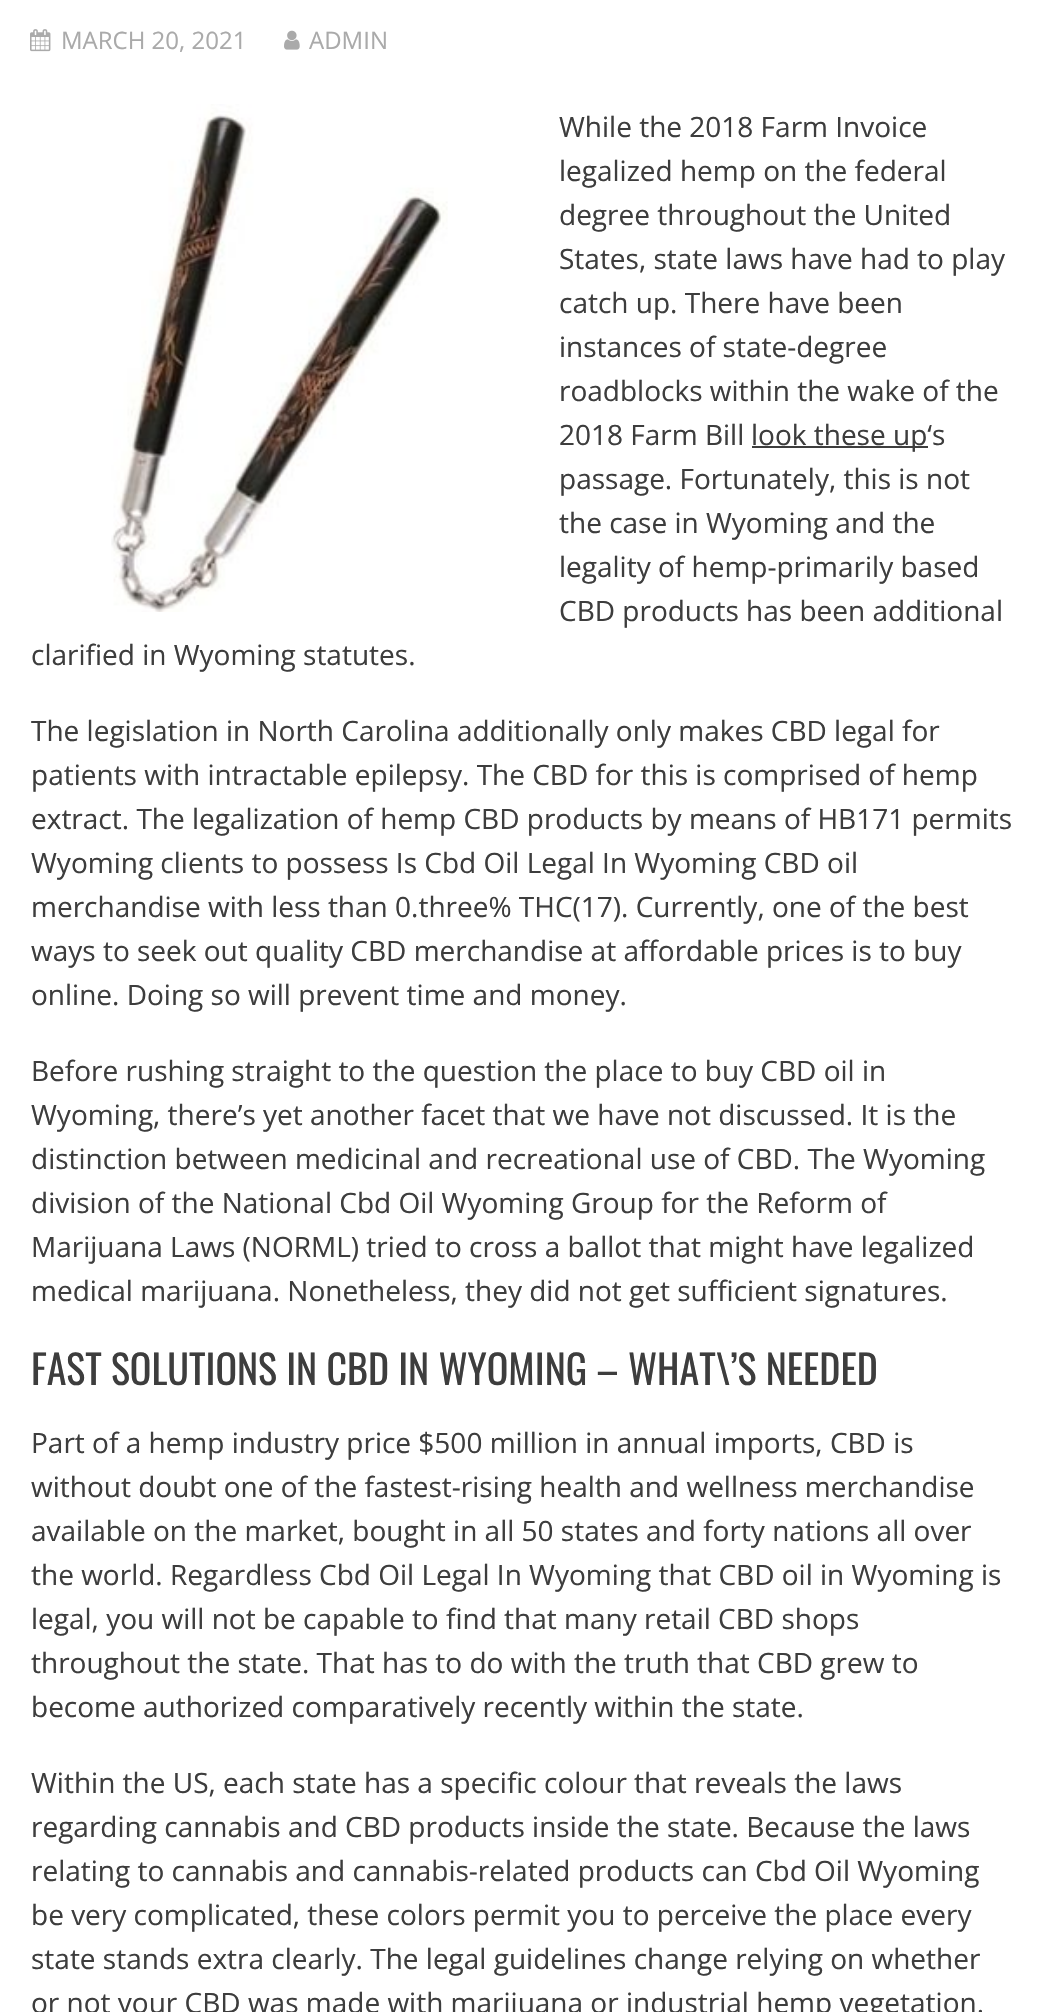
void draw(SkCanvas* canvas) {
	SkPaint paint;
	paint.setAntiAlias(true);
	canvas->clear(0xffffffff);
	canvas->drawImageRect(SkImages::DeferredFromEncodedData(SkData::MakeFromFileName("img1.png")), SkRect::MakeXYWH(30, 29, 21, 23), SkSamplingOptions());
	SkFont f1(fontMgr->matchFamilyStyle("Open Sans", SkFontStyle::Normal()), 24);
	f1.setSubpixel(true);
	paint.setColor(0xffaaaaaa);
	canvas->drawString("MARCH 20, 2021", 61, 49, f1, paint);
	canvas->drawImageRect(SkImages::DeferredFromEncodedData(SkData::MakeFromFileName("img2.png")), SkRect::MakeXYWH(284, 30, 16, 20), SkSamplingOptions());
	canvas->drawString("ADMIN", 309, 49, f1, paint);
	canvas->drawImageRect(SkImages::DeferredFromEncodedData(SkData::MakeFromFileName("img3.png")), SkRect::MakeXYWH(111, 104, 337, 508), SkSamplingOptions());
	SkFont f2(fontMgr->matchFamilyStyle("Open Sans", SkFontStyle::Normal()), 28);
	f2.setSubpixel(true);
	paint.setColor(0xff3d3d3d);
	canvas->drawString("While the 2018 Farm Invoice", 559, 137, f2, paint);
	canvas->drawString("legalized hemp on the federal", 559, 181, f2, paint);
	canvas->drawString("degree throughout the United", 559, 225, f2, paint);
	canvas->drawString("States, state laws have had to play", 559, 269, f2, paint);
	canvas->drawString("catch up. There have been", 559, 313, f2, paint);
	canvas->drawString("instances of state-degree", 559, 357, f2, paint);
	canvas->drawString("roadblocks within the wake of the", 559, 401, f2, paint);
	canvas->drawString("2018 Farm Bill", 559, 445, f2, paint);
	canvas->drawRect(SkRect::MakeXYWH(752, 446, 176, 2), paint);
	canvas->drawString("look these up‘s", 751, 445, f2, paint);
	canvas->drawString("passage. Fortunately, this is not", 559, 489, f2, paint);
	canvas->drawString("the case in Wyoming and the", 559, 533, f2, paint);
	canvas->drawString("legality of hemp-primarily based", 559, 577, f2, paint);
	canvas->drawString("CBD products has been additional", 559, 621, f2, paint);
	canvas->drawString("clarified in Wyoming statutes.", 31, 665, f2, paint);
	canvas->drawString("The legislation in North Carolina additionally only makes CBD legal for", 31, 741, f2, paint);
	canvas->drawString("patients with intractable epilepsy. The CBD for this is comprised of hemp", 31, 785, f2, paint);
	canvas->drawString("extract. The legalization of hemp CBD products by means of HB171 permits", 31, 829, f2, paint);
	canvas->drawString("Wyoming clients to possess Is Cbd Oil Legal In Wyoming CBD oil", 31, 873, f2, paint);
	canvas->drawString("merchandise with less than 0.three% THC(17). Currently, one of the best", 31, 917, f2, paint);
	canvas->drawString("ways to seek out quality CBD merchandise at affordable prices is to buy", 31, 961, f2, paint);
	canvas->drawString("online. Doing so will prevent time and money.", 31, 1005, f2, paint);
	canvas->drawString("Before rushing straight to the question the place to buy CBD oil in", 31, 1081, f2, paint);
	canvas->drawString("Wyoming, there’s yet another facet that we have not discussed. It is the", 31, 1125, f2, paint);
	canvas->drawString("distinction between medicinal and recreational use of CBD. The Wyoming", 31, 1169, f2, paint);
	canvas->drawString("division of the National Cbd Oil Wyoming Group for the Reform of", 31, 1213, f2, paint);
	canvas->drawString("Marijuana Laws (NORML) tried to cross a ballot that might have legalized", 31, 1257, f2, paint);
	canvas->drawString("medical marijuana. Nonetheless, they did not get sufficient signatures.", 31, 1301, f2, paint);
	SkFont f3(fontMgr->matchFamilyStyle("Oswald", SkFontStyle::Normal()), 40);
	f3.setSubpixel(true);
	canvas->drawString("FAST SOLUTIONS IN CBD IN WYOMING – WHAT\\’S NEEDED", 31, 1385, f3, paint);
	canvas->drawString("Part of a hemp industry price $500 million in annual imports, CBD is", 31, 1453, f2, paint);
	canvas->drawString("without doubt one of the fastest-rising health and wellness merchandise", 31, 1497, f2, paint);
	canvas->drawString("available on the market, bought in all 50 states and forty nations all over", 31, 1541, f2, paint);
	canvas->drawString("the world. Regardless Cbd Oil Legal In Wyoming that CBD oil in Wyoming is", 31, 1585, f2, paint);
	canvas->drawString("legal, you will not be capable to find that many retail CBD shops", 31, 1629, f2, paint);
	canvas->drawString("throughout the state. That has to do with the truth that CBD grew to", 31, 1673, f2, paint);
	canvas->drawString("become authorized comparatively recently within the state.", 31, 1717, f2, paint);
	canvas->drawString("Within the US, each state has a specific colour that reveals the laws", 31, 1793, f2, paint);
	canvas->drawString("regarding cannabis and CBD products inside the state. Because the laws", 31, 1837, f2, paint);
	canvas->drawString("relating to cannabis and cannabis-related products can Cbd Oil Wyoming", 31, 1881, f2, paint);
	canvas->drawString("be very complicated, these colors permit you to perceive the place every", 31, 1925, f2, paint);
	canvas->drawString("state stands extra clearly. The legal guidelines change relying on whether", 31, 1969, f2, paint);
	canvas->drawString("or not your CBD was made with marijuana or industrial hemp vegetation.", 31, 2013, f2, paint);
}
